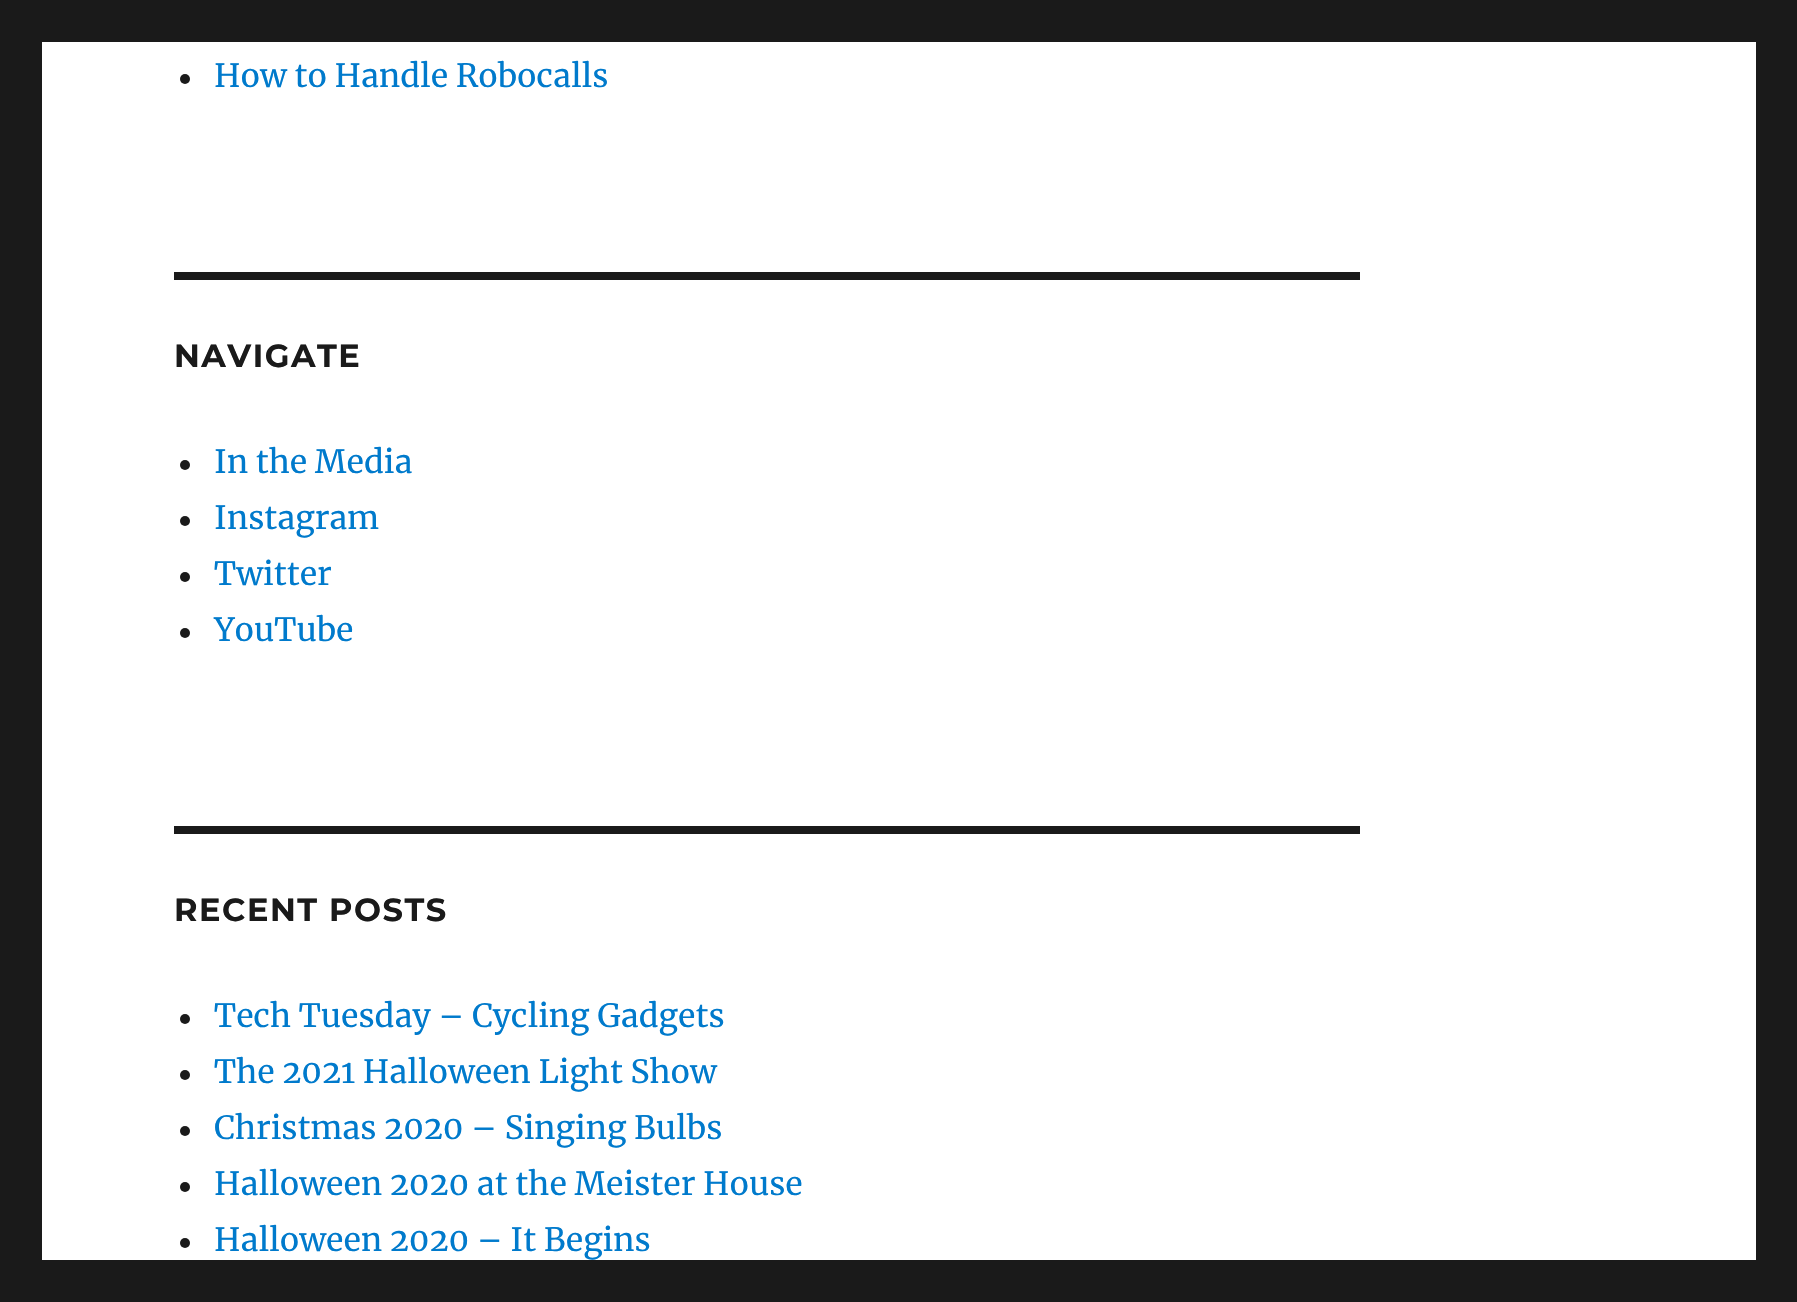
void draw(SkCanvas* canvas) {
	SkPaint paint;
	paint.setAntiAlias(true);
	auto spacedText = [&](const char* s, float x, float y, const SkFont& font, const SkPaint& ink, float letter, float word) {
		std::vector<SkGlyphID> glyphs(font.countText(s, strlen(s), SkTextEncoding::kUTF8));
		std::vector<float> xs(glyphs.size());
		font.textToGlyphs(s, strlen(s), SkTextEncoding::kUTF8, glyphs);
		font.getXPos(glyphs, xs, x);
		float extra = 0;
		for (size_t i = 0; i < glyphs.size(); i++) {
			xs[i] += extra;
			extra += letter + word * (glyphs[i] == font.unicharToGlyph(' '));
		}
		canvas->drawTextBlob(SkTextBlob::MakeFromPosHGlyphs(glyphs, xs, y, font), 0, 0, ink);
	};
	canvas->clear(0xff1a1a1a);
	paint.setColor(0xffffffff);
	canvas->drawRect(SkRect::MakeXYWH(42, 42, 1714, 1218), paint);
	paint.setColor(0xff1a1a1a);
	canvas->drawCircle(185, 79, 5, paint);
	SkFont f1(fontMgr->matchFamilyStyle("Merriweather", SkFontStyle::Normal()), 32);
	f1.setSubpixel(true);
	paint.setColor(0xff007acc);
	canvas->drawString("How to Handle Robocalls", 214, 87, f1, paint);
	paint.setColor(0xff1a1a1a);
	canvas->drawRect(SkRect::MakeXYWH(174, 272, 1186, 8), paint);
	SkFont f2(fontMgr->matchFamilyStyle("Montserrat", SkFontStyle(100, SkFontStyle::kNormal_Width, SkFontStyle::kUpright_Slant)), 32);
	f2.setSubpixel(true);
	spacedText("NAVIGATE", 174, 367, f2, paint, 1.5, 0);
	canvas->drawCircle(185, 465, 5, paint);
	paint.setColor(0xff007acc);
	canvas->drawString("In the Media", 214, 473, f1, paint);
	paint.setColor(0xff1a1a1a);
	canvas->drawCircle(185, 521, 5, paint);
	paint.setColor(0xff007acc);
	canvas->drawString("Instagram", 214, 529, f1, paint);
	paint.setColor(0xff1a1a1a);
	canvas->drawCircle(185, 577, 5, paint);
	paint.setColor(0xff007acc);
	canvas->drawString("Twitter", 214, 585, f1, paint);
	paint.setColor(0xff1a1a1a);
	canvas->drawCircle(185, 633, 5, paint);
	paint.setColor(0xff007acc);
	canvas->drawString("YouTube", 214, 641, f1, paint);
	paint.setColor(0xff1a1a1a);
	canvas->drawRect(SkRect::MakeXYWH(174, 826, 1186, 8), paint);
	spacedText("RECENT POSTS", 174, 921, f2, paint, 1.5, 0);
	canvas->drawCircle(185, 1019, 5, paint);
	paint.setColor(0xff007acc);
	canvas->drawString("Tech Tuesday – Cycling Gadgets", 214, 1027, f1, paint);
	paint.setColor(0xff1a1a1a);
	canvas->drawCircle(185, 1075, 5, paint);
	paint.setColor(0xff007acc);
	canvas->drawString("The 2021 Halloween Light Show", 214, 1083, f1, paint);
	paint.setColor(0xff1a1a1a);
	canvas->drawCircle(185, 1131, 5, paint);
	paint.setColor(0xff007acc);
	canvas->drawString("Christmas 2020 – Singing Bulbs", 214, 1139, f1, paint);
	paint.setColor(0xff1a1a1a);
	canvas->drawCircle(185, 1187, 5, paint);
	paint.setColor(0xff007acc);
	canvas->drawString("Halloween 2020 at the Meister House", 214, 1195, f1, paint);
	paint.setColor(0xff1a1a1a);
	canvas->drawCircle(185, 1243, 5, paint);
	paint.setColor(0xff007acc);
	canvas->drawString("Halloween 2020 – It Begins", 214, 1251, f1, paint);
}
